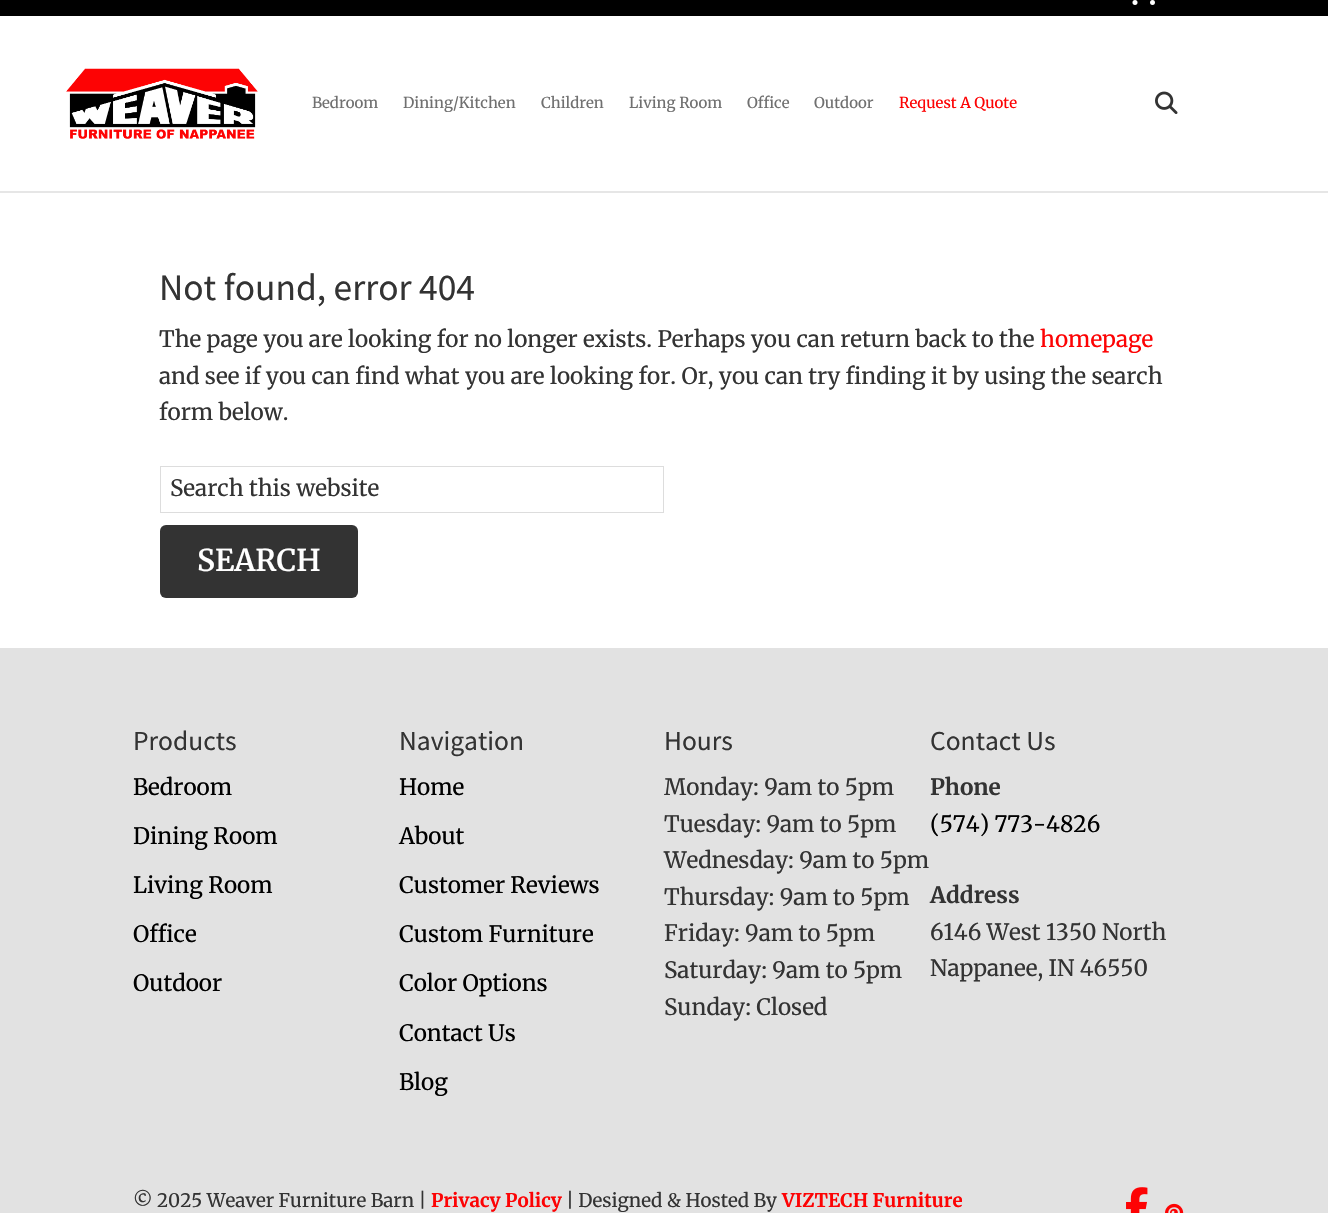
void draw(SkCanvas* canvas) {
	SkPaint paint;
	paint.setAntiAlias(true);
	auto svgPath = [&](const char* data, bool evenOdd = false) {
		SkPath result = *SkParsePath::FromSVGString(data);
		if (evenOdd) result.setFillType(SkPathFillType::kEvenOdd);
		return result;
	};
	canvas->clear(0xffffffff);
	paint.setColor(0xff000000);
	canvas->drawRect(SkRect::MakeXYWH(0, 0, 1328, 16), paint);
	canvas->drawImageRect(SkImages::DeferredFromEncodedData(SkData::MakeFromFileName("img1.png")), SkRect::MakeXYWH(1132, 0, 23, 5), SkSamplingOptions());
	paint.setColor(0xffe6e6e6);
	canvas->drawPath(svgPath("M0 191V193H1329V18V191Z"), paint);
	canvas->drawImageRect(SkImages::DeferredFromEncodedData(SkData::MakeFromFileName("img2.png")), SkRect::MakeXYWH(66, 68, 192, 71), SkSamplingOptions());
	SkFont f1(fontMgr->matchFamilyStyle("Merriweather", SkFontStyle::Normal()), 15);
	f1.setSubpixel(true);
	paint.setColor(0xff707070);
	canvas->drawString("Bedroom", 312, 108, f1, paint);
	canvas->drawString("Dining/Kitchen", 403, 108, f1, paint);
	canvas->drawString("Children", 541, 108, f1, paint);
	canvas->drawString("Living Room", 629, 108, f1, paint);
	canvas->drawString("Office", 747, 108, f1, paint);
	canvas->drawString("Outdoor", 814, 108, f1, paint);
	paint.setColor(0xfffd0304);
	canvas->drawString("Request A Quote", 899, 108, f1, paint);
	canvas->drawImageRect(SkImages::DeferredFromEncodedData(SkData::MakeFromFileName("img3.png")), SkRect::MakeXYWH(1155, 91, 23, 23), SkSamplingOptions());
	SkFont f2(fontMgr->matchFamilyStyle("Source Sans Pro", SkFontStyle::Normal()), 37.5);
	f2.setSubpixel(true);
	paint.setColor(0xff333333);
	canvas->drawString("Not found, error 404", 159, 300, f2, paint);
	SkFont f3(fontMgr->matchFamilyStyle("Merriweather", SkFontStyle::Normal()), 22.5);
	f3.setSubpixel(true);
	canvas->drawString("The page you are looking for no longer exists. Perhaps you can return back to the", 159, 347, f3, paint);
	paint.setColor(0xfffd0304);
	canvas->drawString("homepage", 1040, 347, f3, paint);
	paint.setColor(0xff333333);
	canvas->drawString("and see if you can find what you are looking for. Or, you can try finding it by using the search", 159, 384, f3, paint);
	canvas->drawString("form below.", 159, 420, f3, paint);
	paint.setStroke(true);
	paint.setStrokeWidth(1);
	paint.setColor(0xffdddddd);
	canvas->drawRect(SkRect::MakeXYWH(160.5, 466.5, 503, 46), paint);
	paint.setStroke(false);
	paint.setColor(0xff333333);
	canvas->drawString("Search this website", 170, 496, f3, paint);
	canvas->drawRoundRect(SkRect::MakeXYWH(160, 525, 198, 73), 6, 6, paint);
	SkFont f4(fontMgr->matchFamilyStyle("Merriweather", SkFontStyle(600, SkFontStyle::kNormal_Width, SkFontStyle::kUpright_Slant)), 30);
	f4.setSubpixel(true);
	paint.setColor(0xffffffff);
	canvas->drawString("SEARCH", 197, 571, f4, paint);
	paint.setColor(0xffe2e2e2);
	canvas->drawRect(SkRect::MakeXYWH(0, 648, 1328, 565), paint);
	SkFont f5(fontMgr->matchFamilyStyle("Source Sans Pro", SkFontStyle::Normal()), 27.5);
	f5.setSubpixel(true);
	paint.setColor(0xff333333);
	canvas->drawString("Products", 133, 750, f5, paint);
	paint.setColor(0xff000000);
	canvas->drawString("Bedroom", 133, 795, f3, paint);
	canvas->drawString("Dining Room", 133, 844, f3, paint);
	canvas->drawString("Living Room", 133, 893, f3, paint);
	canvas->drawString("Office", 133, 942, f3, paint);
	canvas->drawString("Outdoor", 133, 991, f3, paint);
	paint.setColor(0xff333333);
	canvas->drawString("Navigation", 399, 750, f5, paint);
	paint.setColor(0xff000000);
	canvas->drawString("Home", 399, 795, f3, paint);
	canvas->drawString("About", 399, 844, f3, paint);
	canvas->drawString("Customer Reviews", 399, 893, f3, paint);
	canvas->drawString("Custom Furniture", 399, 942, f3, paint);
	canvas->drawString("Color Options", 399, 991, f3, paint);
	canvas->drawString("Contact Us", 399, 1041, f3, paint);
	canvas->drawString("Blog", 399, 1090, f3, paint);
	paint.setColor(0xff333333);
	canvas->drawString("Hours", 664, 750, f5, paint);
	canvas->drawString("Monday: 9am to 5pm", 664, 795, f3, paint);
	canvas->drawString("Tuesday: 9am to 5pm", 664, 832, f3, paint);
	canvas->drawString("Wednesday: 9am to 5pm", 664, 868, f3, paint);
	canvas->drawString("Thursday: 9am to 5pm", 664, 905, f3, paint);
	canvas->drawString("Friday: 9am to 5pm", 664, 941, f3, paint);
	canvas->drawString("Saturday: 9am to 5pm", 664, 978, f3, paint);
	canvas->drawString("Sunday: Closed", 664, 1015, f3, paint);
	canvas->drawString("Contact Us", 930, 750, f5, paint);
	SkFont f6(fontMgr->matchFamilyStyle("Merriweather", SkFontStyle::Bold()), 22.5);
	f6.setSubpixel(true);
	canvas->drawString("Phone", 930, 795, f6, paint);
	paint.setColor(0xff000000);
	canvas->drawString("(574) 773-4826", 930, 832, f3, paint);
	paint.setColor(0xff333333);
	canvas->drawString("Address", 930, 903, f6, paint);
	canvas->drawString("6146 West 1350 North", 930, 940, f3, paint);
	canvas->drawString("Nappanee, IN 46550", 930, 976, f3, paint);
	SkFont f7(fontMgr->matchFamilyStyle("Merriweather", SkFontStyle::Normal()), 18.75);
	f7.setSubpixel(true);
	canvas->drawString("© 2025 Weaver Furniture Barn |", 133, 1207, f7, paint);
	SkFont f8(fontMgr->matchFamilyStyle("Merriweather", SkFontStyle::Bold()), 18.75);
	f8.setSubpixel(true);
	paint.setColor(0xfffd0304);
	canvas->drawString("Privacy Policy", 431, 1207, f8, paint);
	paint.setColor(0xff333333);
	canvas->drawString("| Designed & Hosted By", 566, 1207, f7, paint);
	paint.setColor(0xfffd0304);
	canvas->drawString("VIZTECH Furniture", 782, 1207, f8, paint);
	canvas->drawImageRect(SkImages::DeferredFromEncodedData(SkData::MakeFromFileName("img4.png")), SkRect::MakeXYWH(1126, 1187, 22, 26), SkSamplingOptions());
	canvas->drawImageRect(SkImages::DeferredFromEncodedData(SkData::MakeFromFileName("img5.png")), SkRect::MakeXYWH(1165, 1203, 19, 10), SkSamplingOptions());
}
